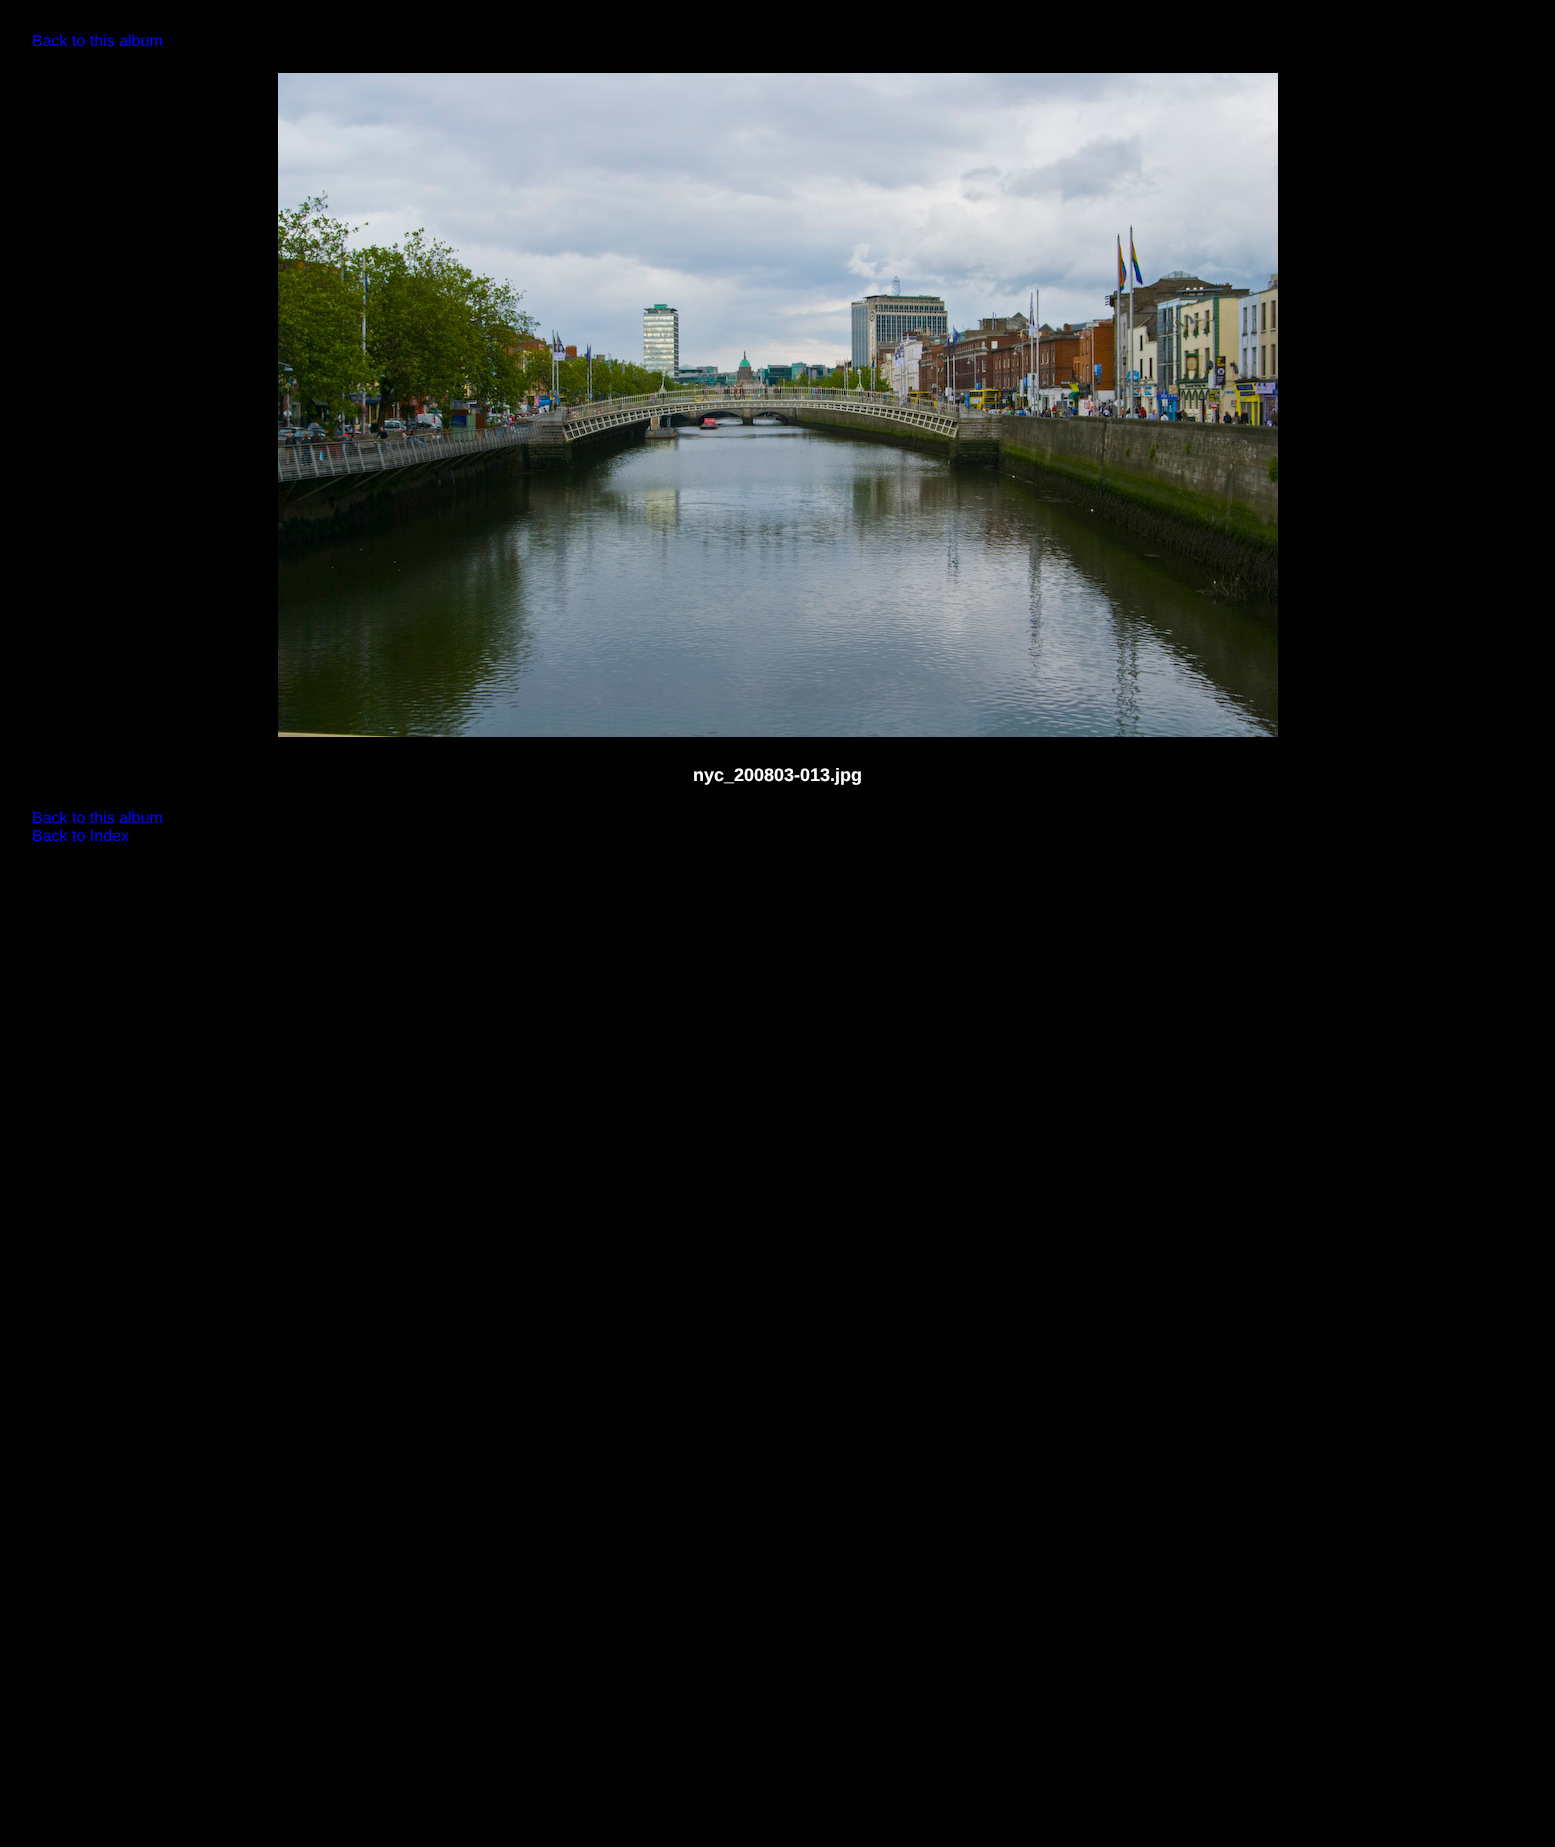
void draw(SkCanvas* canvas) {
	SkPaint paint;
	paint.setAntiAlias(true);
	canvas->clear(0xff000000);
	SkFont f1(fontMgr->matchFamilyStyle("Liberation Sans", SkFontStyle::Normal()), 16);
	f1.setSubpixel(true);
	paint.setColor(0xff0000ff);
	canvas->drawString("Back to this album", 32, 46, f1, paint);
	canvas->drawImageRect(SkImages::DeferredFromEncodedData(SkData::MakeFromFileName("img1.png")), SkRect::MakeXYWH(278, 73, 1000, 664), SkSamplingOptions());
	SkFont f2(fontMgr->matchFamilyStyle("Liberation Sans", SkFontStyle::Bold()), 18);
	f2.setSubpixel(true);
	paint.setColor(0xffffffff);
	canvas->drawString("nyc_200803-013.jpg", 693, 781, f2, paint);
	paint.setColor(0xff0000ff);
	canvas->drawString("Back to this album", 32, 823, f1, paint);
	canvas->drawString("Back to Index", 32, 841, f1, paint);
}
